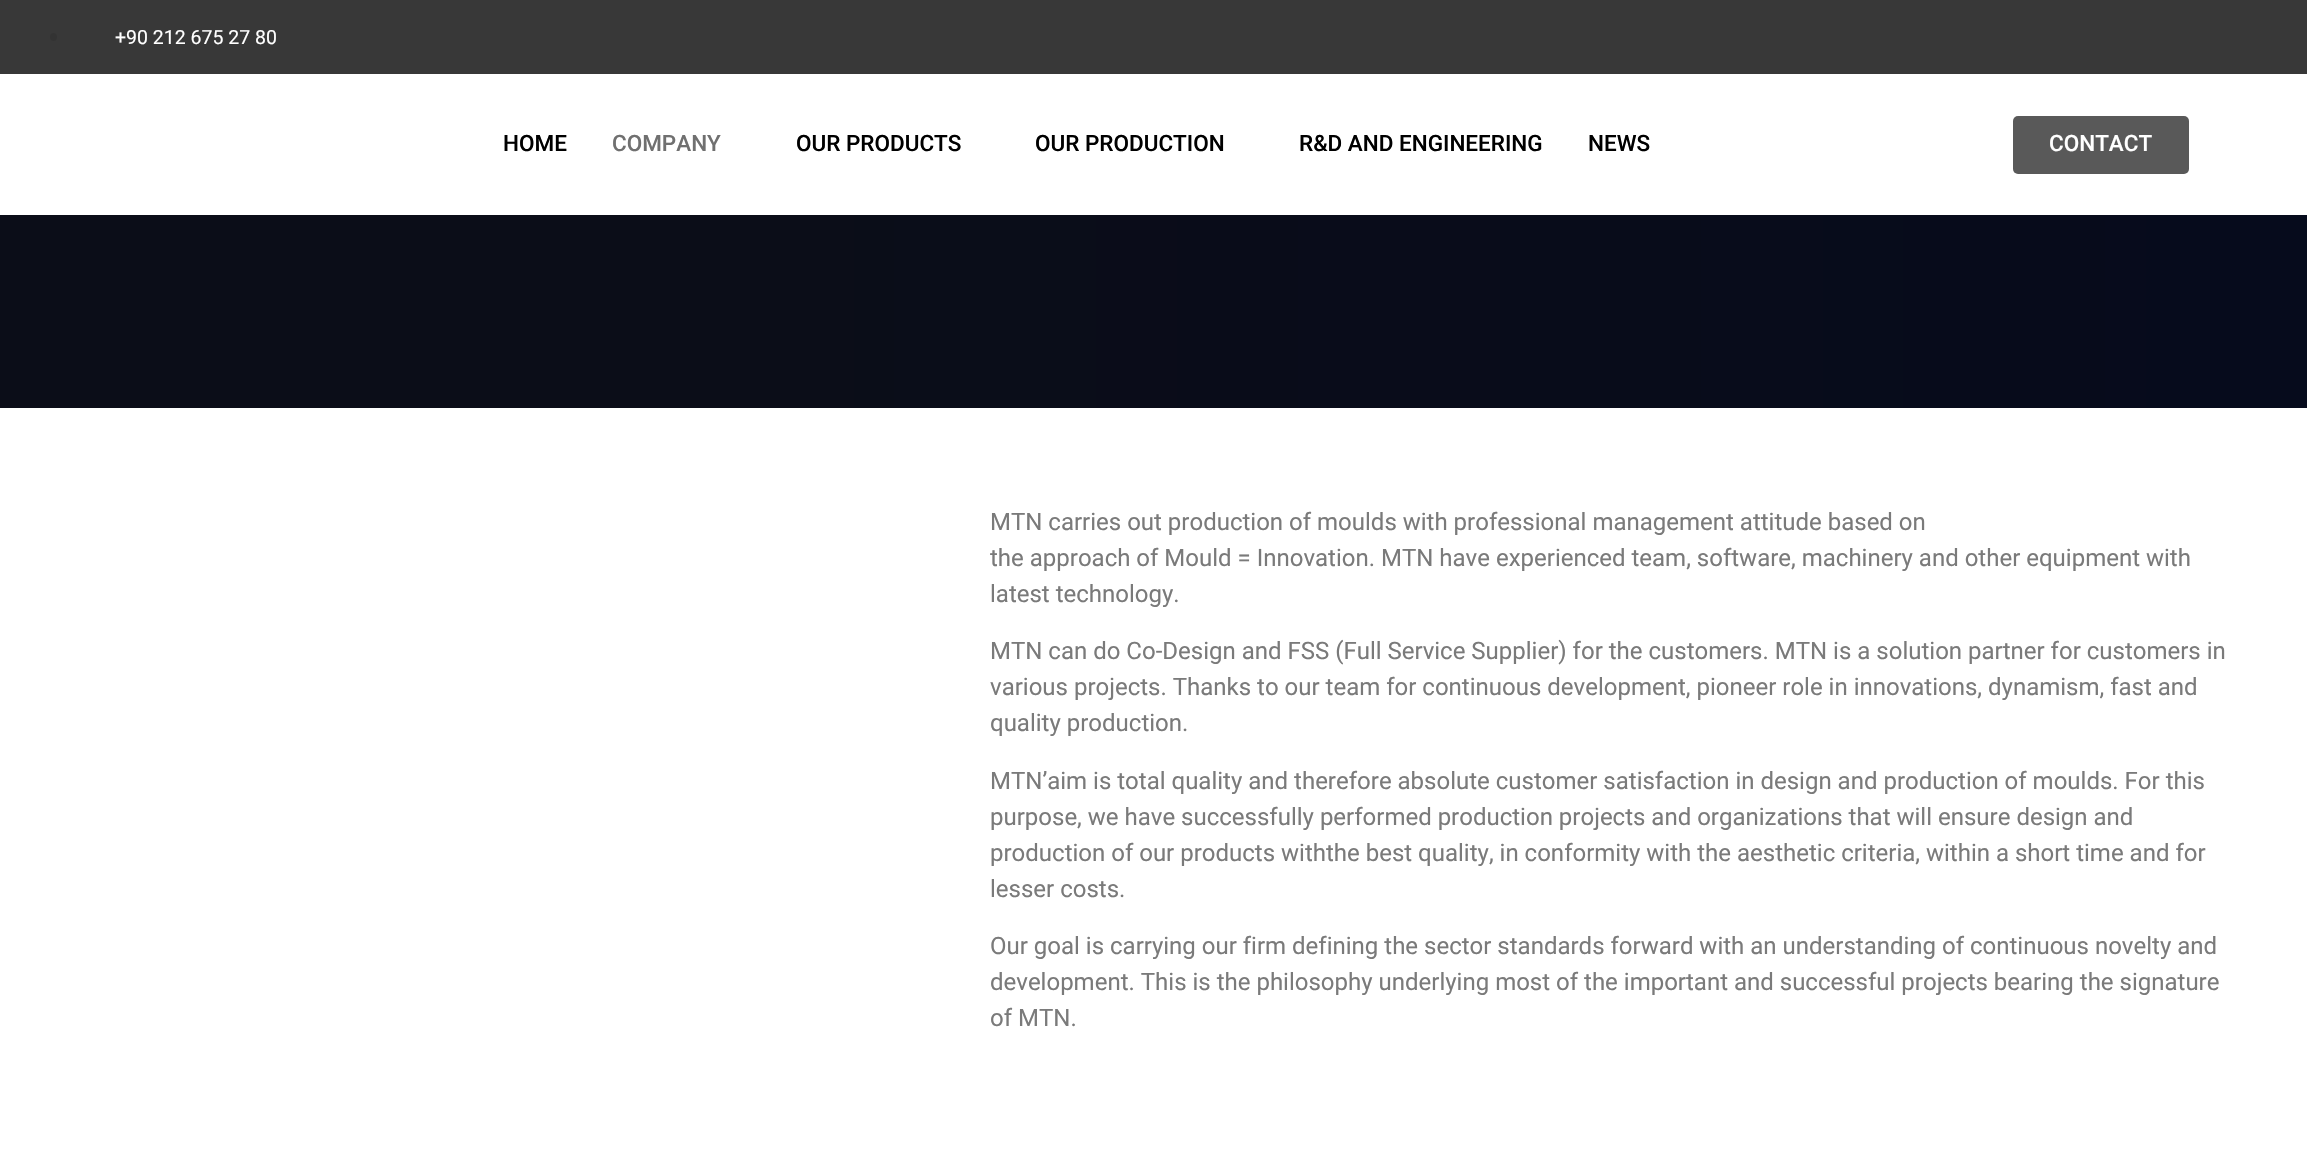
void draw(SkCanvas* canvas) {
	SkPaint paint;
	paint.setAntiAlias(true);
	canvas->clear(0xffffffff);
	paint.setColor(0xff383838);
	canvas->drawRect(SkRect::MakeXYWH(0, 0, 2307, 74), paint);
	paint.setColor(0xff333333);
	canvas->drawRoundRect(SkRect::MakeXYWH(50, 33, 7, 8), 3.5, 3.5, paint);
	SkFont f1(fontMgr->matchFamilyStyle("Roboto", SkFontStyle::Normal()), 19.5);
	f1.setSubpixel(true);
	paint.setColor(0xffffffff);
	canvas->drawString("+90 212 675 27 80", 115, 44, f1, paint);
	SkFont f2(fontMgr->matchFamilyStyle("Roboto", SkFontStyle(500, SkFontStyle::kNormal_Width, SkFontStyle::kUpright_Slant)), 22.5);
	f2.setSubpixel(true);
	paint.setColor(0xff000000);
	canvas->drawString("HOME", 503, 151, f2, paint);
	paint.setColor(0xff707070);
	canvas->drawString("COMPANY", 612, 151, f2, paint);
	paint.setColor(0xff000000);
	canvas->drawString("OUR PRODUCTS", 796, 151, f2, paint);
	canvas->drawString("OUR PRODUCTION", 1035, 151, f2, paint);
	canvas->drawString("R&D AND ENGINEERING", 1299, 151, f2, paint);
	canvas->drawString("NEWS", 1588, 151, f2, paint);
	paint.setColor(0xff595959);
	canvas->drawRoundRect(SkRect::MakeXYWH(2013, 116, 176, 58), 5, 5, paint);
	paint.setColor(0xffffffff);
	canvas->drawString("CONTACT", 2049, 151, f2, paint);
	{
		const SkColor colors[] = {0xff0b0d18, 0xff060b1c};
		const float stops[] = {0.3, 1};
		const SkPoint ends[] = {{0, 311}, {2307, 311}};
		paint.setShader(SkGradientShader::MakeLinear(ends, colors, stops, 2, SkTileMode::kClamp));
		paint.setAlpha(255);
	}
	canvas->drawRect(SkRect::MakeXYWH(0, 215, 2307, 193), paint);
	SkFont f3(fontMgr->matchFamilyStyle("Roboto", SkFontStyle::Normal()), 24);
	f3.setSubpixel(true);
	paint.setShader(nullptr);
	paint.setColor(0xff7a7a7a);
	canvas->drawString("MTN carries out production of moulds with professional management attitude based on", 990, 530, f3, paint);
	canvas->drawString("the approach of Mould = Innovation. MTN have experienced team, software, machinery and other equipment with", 990, 566, f3, paint);
	canvas->drawString("latest technology.", 990, 602, f3, paint);
	canvas->drawString("MTN can do Co-Design and FSS (Full Service Supplier) for the customers. MTN is a solution partner for customers in", 990, 659, f3, paint);
	canvas->drawString("various projects. Thanks to our team for continuous development, pioneer role in innovations, dynamism, fast and", 990, 695, f3, paint);
	canvas->drawString("quality production.", 990, 731, f3, paint);
	canvas->drawString("MTN’aim is total quality and therefore absolute customer satisfaction in design and production of moulds. For this", 990, 789, f3, paint);
	canvas->drawString("purpose, we have successfully performed production projects and organizations that will ensure design and", 990, 825, f3, paint);
	canvas->drawString("production of our products withthe best quality, in conformity with the aesthetic criteria, within a short time and for", 990, 861, f3, paint);
	canvas->drawString("lesser costs.", 990, 897, f3, paint);
	canvas->drawString("Our goal is carrying our firm defining the sector standards forward with an understanding of continuous novelty and", 990, 954, f3, paint);
	canvas->drawString("development. This is the philosophy underlying most of the important and successful projects bearing the signature", 990, 990, f3, paint);
	canvas->drawString("of MTN.", 990, 1026, f3, paint);
}
